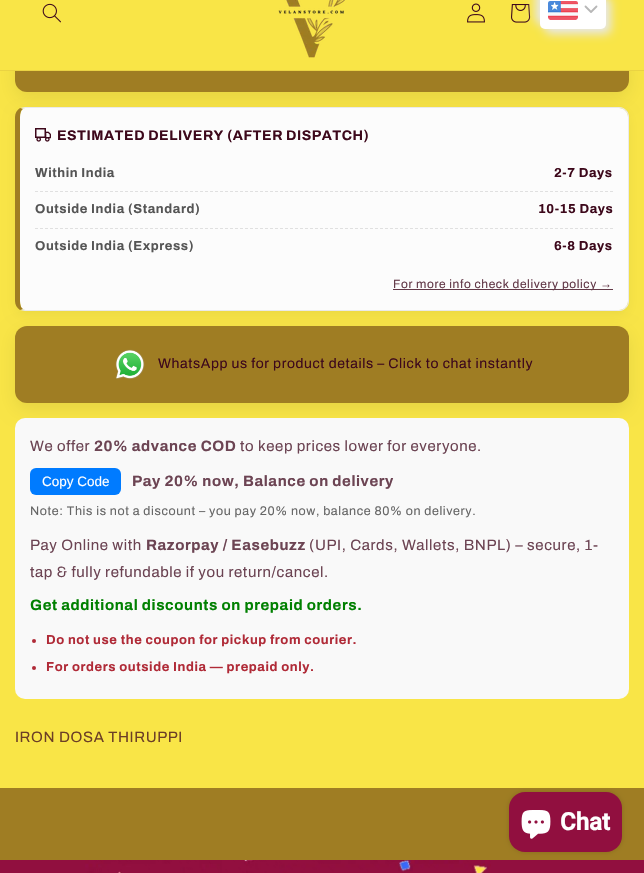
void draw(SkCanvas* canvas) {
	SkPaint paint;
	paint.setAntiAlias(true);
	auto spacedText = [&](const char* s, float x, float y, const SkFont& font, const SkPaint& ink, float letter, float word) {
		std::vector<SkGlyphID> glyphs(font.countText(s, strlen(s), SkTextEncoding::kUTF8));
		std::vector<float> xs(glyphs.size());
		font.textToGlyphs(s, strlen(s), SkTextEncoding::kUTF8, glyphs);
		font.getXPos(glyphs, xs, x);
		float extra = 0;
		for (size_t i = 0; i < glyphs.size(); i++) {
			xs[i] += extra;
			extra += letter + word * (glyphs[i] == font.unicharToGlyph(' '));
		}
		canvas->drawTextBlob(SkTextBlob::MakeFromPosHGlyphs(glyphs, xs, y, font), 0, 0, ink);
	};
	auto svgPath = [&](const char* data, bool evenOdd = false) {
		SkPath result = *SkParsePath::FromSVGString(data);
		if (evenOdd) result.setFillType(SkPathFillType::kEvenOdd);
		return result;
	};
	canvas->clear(0xff9f7d23);
	paint.setColor(0xfff9e547);
	canvas->drawRect(SkRect::MakeXYWH(0, 71, 644, 717), paint);
	paint.setColor(0x14000000);
	paint.setMaskFilter(SkMaskFilter::MakeBlur(kNormal_SkBlurStyle, 9));
	canvas->drawRoundRect(SkRect::MakeXYWH(15, 9, 614, 89), 12, 12, paint);
	paint.setMaskFilter(nullptr);
	paint.setColor(0xff9f7d23);
	canvas->drawRoundRect(SkRect::MakeXYWH(15, 3, 614, 89), 12, 12, paint);
	paint.setColor(0xfff9e547);
	canvas->drawRect(SkRect::MakeXYWH(0, 0, 644, 70), paint);
	paint.setColor(0xffead343);
	canvas->drawRect(SkRect::MakeXYWH(0, 70, 644, 1), paint);
	canvas->drawImageRect(SkImages::DeferredFromEncodedData(SkData::MakeFromFileName("img1.png")), SkRect::MakeXYWH(42, 3, 19, 20), SkSamplingOptions());
	canvas->drawImageRect(SkImages::DeferredFromEncodedData(SkData::MakeFromFileName("img2.png")), SkRect::MakeXYWH(278, 0, 67, 58), SkSamplingOptions());
	canvas->drawImageRect(SkImages::DeferredFromEncodedData(SkData::MakeFromFileName("img3.png")), SkRect::MakeXYWH(467, 3, 18, 20), SkSamplingOptions());
	canvas->drawImageRect(SkImages::DeferredFromEncodedData(SkData::MakeFromFileName("img5.png")), SkRect::MakeXYWH(511, 4, 20, 19), SkSamplingOptions());
	paint.setColor(0xffe8e8e8);
	paint.setMaskFilter(SkMaskFilter::MakeBlur(kNormal_SkBlurStyle, 5));
	canvas->drawRoundRect(SkRect::MakeXYWH(535, -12, 66, 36), 5, 5, paint);
	paint.setMaskFilter(nullptr);
	paint.setMaskFilter(SkMaskFilter::MakeBlur(kNormal_SkBlurStyle, 5));
	canvas->drawRoundRect(SkRect::MakeXYWH(545, -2, 66, 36), 5, 5, paint);
	paint.setMaskFilter(nullptr);
	paint.setColor(0xffffffff);
	canvas->drawRoundRect(SkRect::MakeXYWH(540, -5, 66, 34), 5, 5, paint);
	canvas->drawImageRect(SkImages::DeferredFromEncodedData(SkData::MakeFromFileName("img4.png")), SkRect::MakeXYWH(548, 1, 30, 19), SkSamplingOptions());
	paint.setStroke(true);
	paint.setStrokeWidth(1.8);
	paint.setStrokeCap(SkPaint::kRound_Cap);
	paint.setStrokeJoin(SkPaint::kRound_Join);
	paint.setColor(0xffb7b7b7);
	canvas->drawPath(svgPath("M585.5 6.5L591 12L596.5 6.5"), paint);
	paint.setStroke(false);
	paint.setColor(0x0d000000);
	paint.setMaskFilter(SkMaskFilter::MakeBlur(kNormal_SkBlurStyle, 6));
	canvas->drawRoundRect(SkRect::MakeXYWH(15, 111, 614, 204), 10, 10, paint);
	paint.setMaskFilter(nullptr);
	paint.setColor(0xfffcfcfc);
	canvas->drawPath(svgPath("M25 108H619C624 108 628 112 628 117V301C628 306 624 310 619 310H25C22 310 20 306 20 301V117C20 112 22 108 25 108Z"), paint);
	paint.setColor(0xffeaeaea);
	canvas->drawPath(svgPath("M25 107L20 108L23 109L25 108H619C622 108 624 109 625 111L626 110C624 108 622 107 619 107Z"), paint);
	canvas->drawPath(svgPath("M629 301V117C629 114 628 112 626 110L625 111C627 112 628 114 628 117V301C628 304 627 306 625 307L626 308C628 306 629 304 629 301Z"), paint);
	canvas->drawPath(svgPath("M25 311H619C622 311 624 310 626 308L625 307C624 309 622 310 619 310H25L23 309L20 310Z"), paint);
	paint.setColor(0xff9f7d23);
	canvas->drawPath(svgPath("M15 117V301C15 305 17 308 20 310L23 309C21 308 20 305 20 301V117C20 113 21 110 23 109L20 108C17 110 15 113 15 117Z"), paint);
	canvas->drawImageRect(SkImages::DeferredFromEncodedData(SkData::MakeFromFileName("img6.png")), SkRect::MakeXYWH(35, 128, 16, 14), SkSamplingOptions());
	SkFont f1(fontMgr->matchFamilyStyle("Archivo", SkFontStyle::Bold()), 14);
	f1.setSubpixel(true);
	paint.setColor(0xff3d081b);
	spacedText("ESTIMATED DELIVERY (AFTER DISPATCH)", 57, 140, f1, paint, 0.5, 0);
	paint.setStroke(true);
	paint.setStrokeWidth(1);
	paint.setStrokeCap(SkPaint::kButt_Cap);
	paint.setStrokeJoin(SkPaint::kMiter_Join);
	paint.setColor(0xffe0e0e0);
	paint.setPathEffect(SkDashPathEffect::Make({{3, 2}}, 0));
	canvas->drawPath(svgPath("M35 191.5H613"), paint);
	paint.setPathEffect(nullptr);
	SkFont f2(fontMgr->matchFamilyStyle("Archivo", SkFontStyle::Bold()), 13);
	f2.setSubpixel(true);
	paint.setStroke(false);
	paint.setColor(0xff555555);
	spacedText("Within India", 35, 177, f2, paint, 0.6, 0);
	paint.setColor(0xff3d081b);
	spacedText("2-7 Days", 554, 177, f2, paint, 0.6, 0);
	paint.setStroke(true);
	paint.setColor(0xffe0e0e0);
	paint.setPathEffect(SkDashPathEffect::Make({{3, 2}}, 0));
	canvas->drawPath(svgPath("M35 228.5H613"), paint);
	paint.setPathEffect(nullptr);
	paint.setStroke(false);
	paint.setColor(0xff555555);
	spacedText("Outside India (Standard)", 35, 213, f2, paint, 0.6, 0);
	paint.setColor(0xff3d081b);
	spacedText("10-15 Days", 538, 213, f2, paint, 0.6, 0);
	paint.setColor(0xff555555);
	spacedText("Outside India (Express)", 35, 250, f2, paint, 0.6, 0);
	paint.setColor(0xff3d081b);
	spacedText("6-8 Days", 554, 250, f2, paint, 0.6, 0);
	paint.setColor(0xff633948);
	canvas->drawRect(SkRect::MakeXYWH(393, 289, 220, 1), paint);
	SkFont f3(fontMgr->matchFamilyStyle("Archivo", SkFontStyle::Normal()), 12);
	f3.setSubpixel(true);
	spacedText("For more info check delivery policy", 393, 288, f3, paint, 0.6, 0);
	SkFont f4(fontMgr->matchFamilyStyle("Liberation Sans", SkFontStyle::Normal()), 12);
	f4.setSubpixel(true);
	spacedText("→", 600, 288, f4, paint, 0.6, 0);
	paint.setColor(0x14000000);
	paint.setMaskFilter(SkMaskFilter::MakeBlur(kNormal_SkBlurStyle, 9));
	canvas->drawRoundRect(SkRect::MakeXYWH(15, 332, 614, 77), 12, 12, paint);
	paint.setMaskFilter(nullptr);
	paint.setColor(0xff9f7d23);
	canvas->drawRoundRect(SkRect::MakeXYWH(15, 326, 614, 77), 12, 12, paint);
	canvas->drawImageRect(SkImages::DeferredFromEncodedData(SkData::MakeFromFileName("img7.png")), SkRect::MakeXYWH(115, 349, 30, 30), SkSamplingOptions());
	SkFont f5(fontMgr->matchFamilyStyle("Archivo", SkFontStyle::Normal()), 14);
	f5.setSubpixel(true);
	paint.setColor(0xff3d081b);
	spacedText("WhatsApp us for product details – Click to chat instantly", 158, 368, f5, paint, 0.6, 0);
	paint.setColor(0xfff9f9f9);
	canvas->drawRoundRect(SkRect::MakeXYWH(15, 418, 614, 281), 10, 10, paint);
	SkFont f6(fontMgr->matchFamilyStyle("Archivo", SkFontStyle::Normal()), 15);
	f6.setSubpixel(true);
	paint.setColor(0xff6c4453);
	spacedText("We offer", 30, 451, f6, paint, 0.6, 0);
	SkFont f7(fontMgr->matchFamilyStyle("Archivo", SkFontStyle::Bold()), 15);
	f7.setSubpixel(true);
	spacedText("20% advance COD", 94, 451, f7, paint, 0.6, 0);
	spacedText("to keep prices lower for everyone.", 240, 451, f6, paint, 0.6, 0);
	paint.setColor(0xff007bff);
	canvas->drawRoundRect(SkRect::MakeXYWH(30, 468, 91, 27), 6, 6, paint);
	SkFont f8(fontMgr->matchFamilyStyle("Liberation Sans", SkFontStyle::Normal()), 13.5);
	f8.setSubpixel(true);
	paint.setColor(0xffffffff);
	canvas->drawString("Copy Code", 42, 486, f8, paint);
	paint.setColor(0xff6c4453);
	spacedText("Pay 20% now, Balance on delivery", 132, 486, f7, paint, 0.6, 0);
	SkFont f9(fontMgr->matchFamilyStyle("Archivo", SkFontStyle::Normal()), 12.5);
	f9.setSubpixel(true);
	paint.setColor(0xff666666);
	spacedText("Note: This is not a discount – you pay 20% now, balance 80% on delivery.", 30, 515, f9, paint, 0.6, 0);
	paint.setColor(0xff6c4453);
	spacedText("Pay Online with", 30, 550, f6, paint, 0.6, 0);
	spacedText("Razorpay / Easebuzz", 146, 550, f7, paint, 0.6, 0);
	spacedText("(UPI, Cards, Wallets, BNPL) – secure, 1-", 309, 550, f6, paint, 0.6, 0);
	spacedText("tap & fully refundable if you return/cancel.", 30, 577, f6, paint, 0.6, 0);
	paint.setColor(0xff008000);
	spacedText("Get additional discounts on prepaid orders.", 30, 610, f7, paint, 0.6, 0);
	paint.setColor(0xffb02a37);
	canvas->drawCircle(34, 641, 2, paint);
	spacedText("Do not use the coupon for pickup from courier.", 46, 644, f2, paint, 0.6, 0);
	canvas->drawCircle(34, 668, 2, paint);
	spacedText("For orders outside India — prepaid only.", 46, 671, f2, paint, 0.6, 0);
	paint.setColor(0xff6c3f26);
	spacedText("IRON DOSA THIRUPPI", 15, 742, f6, paint, 0.6, 0);
	paint.setColor(0xff910f3f);
	canvas->drawRect(SkRect::MakeXYWH(0, 860, 644, 13), paint);
	paint.setColor(0x26000000);
	paint.setMaskFilter(SkMaskFilter::MakeBlur(kNormal_SkBlurStyle, 2.5));
	canvas->drawRoundRect(SkRect::MakeXYWH(509, 792, 113, 60), 16, 16, paint);
	paint.setMaskFilter(nullptr);
	paint.setColor(0xff910f3f);
	canvas->drawRoundRect(SkRect::MakeXYWH(509, 792, 113, 60), 16, 16, paint);
	canvas->drawImageRect(SkImages::DeferredFromEncodedData(SkData::MakeFromFileName("img8.png")), SkRect::MakeXYWH(521, 810, 30, 29), SkSamplingOptions());
	SkFont f10(fontMgr->matchFamilyStyle("Roboto", SkFontStyle::Bold()), 24);
	f10.setSubpixel(true);
	paint.setColor(0xffffffff);
	canvas->drawString("Chat", 560, 830, f10, paint);
	canvas->drawImageRect(SkImages::DeferredFromEncodedData(SkData::MakeFromFileName("img9.png")), SkRect::MakeXYWH(85, 860, 406, 13), SkSamplingOptions());
}
